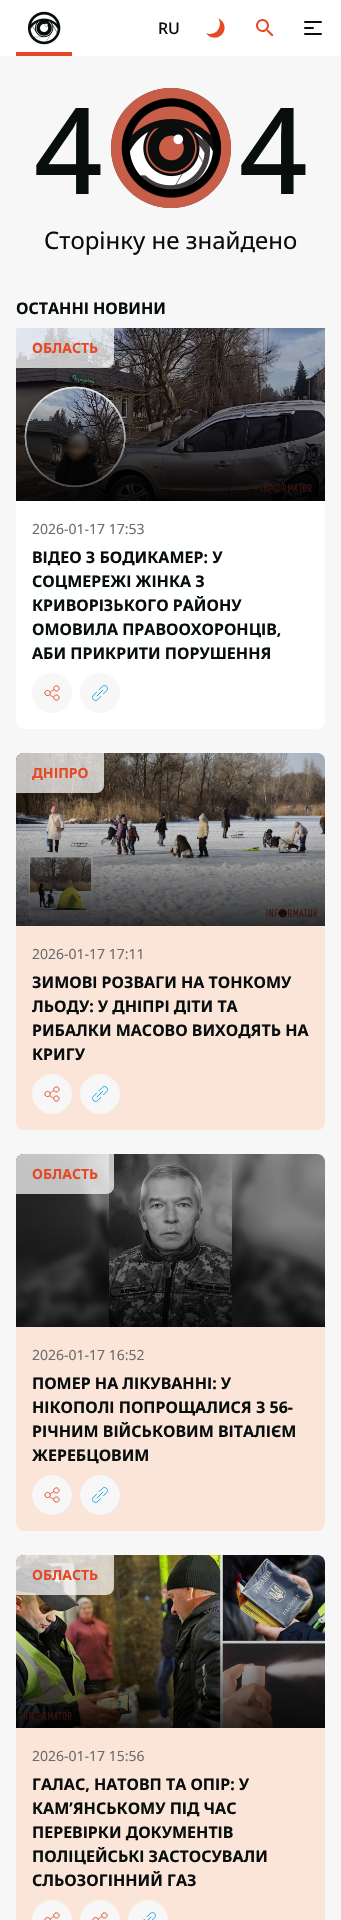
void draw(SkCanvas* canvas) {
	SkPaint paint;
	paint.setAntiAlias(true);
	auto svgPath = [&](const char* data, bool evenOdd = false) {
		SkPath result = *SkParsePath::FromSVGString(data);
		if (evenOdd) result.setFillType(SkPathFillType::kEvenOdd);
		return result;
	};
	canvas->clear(0xfff7f7f7);
	paint.setColor(0xffffffff);
	canvas->drawRect(SkRect::MakeXYWH(0, 0, 341, 56), paint);
	canvas->drawImageRect(SkImages::DeferredFromEncodedData(SkData::MakeFromFileName("img1.png")), SkRect::MakeXYWH(27, 11, 34, 34), SkSamplingOptions());
	paint.setColor(0xffe54824);
	canvas->drawRect(SkRect::MakeXYWH(16, 52, 56, 4), paint);
	SkFont f1(fontMgr->matchFamilyStyle("Noto Sans", SkFontStyle(500, SkFontStyle::kNormal_Width, SkFontStyle::kUpright_Slant)), 16);
	f1.setSubpixel(true);
	paint.setColor(0xff080e0d);
	canvas->drawString("RU", 158, 34, f1, paint);
	canvas->drawImageRect(SkImages::DeferredFromEncodedData(SkData::MakeFromFileName("img2.png")), SkRect::MakeXYWH(206, 18, 19, 20), SkSamplingOptions());
	canvas->drawImageRect(SkImages::DeferredFromEncodedData(SkData::MakeFromFileName("img3.png")), SkRect::MakeXYWH(256, 19, 18, 18), SkSamplingOptions());
	canvas->drawRoundRect(SkRect::MakeXYWH(304, 21, 18, 2), 1, 1, paint);
	canvas->drawRoundRect(SkRect::MakeXYWH(304, 27, 10, 2), 1, 1, paint);
	canvas->drawRoundRect(SkRect::MakeXYWH(304, 33, 18, 2), 1, 1, paint);
	SkFont f2(fontMgr->matchFamilyStyle("Noto Sans", SkFontStyle(500, SkFontStyle::kNormal_Width, SkFontStyle::kUpright_Slant)), 120);
	f2.setSubpixel(true);
	canvas->drawString("4", 34, 194, f2, paint);
	canvas->drawImageRect(SkImages::DeferredFromEncodedData(SkData::MakeFromFileName("img4.png")), SkRect::MakeXYWH(111, 88, 120, 120), SkSamplingOptions());
	canvas->drawString("4", 239, 194, f2, paint);
	SkFont f3(fontMgr->matchFamilyStyle("Noto Sans", SkFontStyle::Normal()), 24);
	f3.setSubpixel(true);
	canvas->drawString("Сторінку не знайдено", 44, 249, f3, paint);
	SkFont f4(fontMgr->matchFamilyStyle("Noto Sans", SkFontStyle::Bold()), 16);
	f4.setSubpixel(true);
	canvas->drawString("ОСТАННІ НОВИНИ", 16, 314, f4, paint);
	paint.setColor(0xffffffff);
	canvas->drawPath(svgPath("M16 328H325V721C325 725.5 321.5 729 317 729H24C19.5 729 16 725.5 16 721Z"), paint);
	canvas->drawImageRect(SkImages::DeferredFromEncodedData(SkData::MakeFromFileName("img5.png")), SkRect::MakeXYWH(16, 328, 309, 173), SkSamplingOptions());
	paint.setColor(0xb8ffffff);
	canvas->drawPath(svgPath("M16 328H114V360C114 364.5 110.5 368 106 368H16Z"), paint);
	SkFont f5(fontMgr->matchFamilyStyle("Noto Sans", SkFontStyle::Bold()), 14);
	f5.setSubpixel(true);
	paint.setColor(0xffe54824);
	canvas->drawString("ОБЛАСТЬ", 32, 353, f5, paint);
	SkFont f6(fontMgr->matchFamilyStyle("Noto Sans", SkFontStyle::Normal()), 14);
	f6.setSubpixel(true);
	paint.setColor(0xff6e6d6d);
	canvas->drawString("2026-01-17 17:53", 32, 534, f6, paint);
	paint.setColor(0xff080e0d);
	canvas->drawString("ВІДЕО З БОДИКАМЕР: У", 32, 563, f4, paint);
	canvas->drawString("СОЦМЕРЕЖІ ЖІНКА З", 32, 587, f4, paint);
	canvas->drawString("КРИВОРІЗЬКОГО РАЙОНУ", 32, 611, f4, paint);
	canvas->drawString("ОМОВИЛА ПРАВООХОРОНЦІВ,", 32, 635, f4, paint);
	canvas->drawString("АБИ ПРИКРИТИ ПОРУШЕННЯ", 32, 659, f4, paint);
	paint.setColor(0xfff7f7f7);
	canvas->drawCircle(52, 693, 20, paint);
	canvas->drawImageRect(SkImages::DeferredFromEncodedData(SkData::MakeFromFileName("img6.png")), SkRect::MakeXYWH(44, 685, 16, 16), SkSamplingOptions());
	canvas->drawCircle(100, 693, 20, paint);
	canvas->drawImageRect(SkImages::DeferredFromEncodedData(SkData::MakeFromFileName("img7.png")), SkRect::MakeXYWH(92, 685, 16, 16), SkSamplingOptions());
	paint.setColor(0xfffbe4d8);
	canvas->drawRoundRect(SkRect::MakeXYWH(16, 753, 309, 377), 8, 8, paint);
	canvas->drawImageRect(SkImages::DeferredFromEncodedData(SkData::MakeFromFileName("img8.png")), SkRect::MakeXYWH(16, 753, 309, 173), SkSamplingOptions());
	{
		const SkColor colors[] = {0xcc000000, 0x1a000000};
		const float stops[] = {0, 0.6};
		const SkPoint ends[] = {{171, 926}, {171, 753}};
		paint.setShader(SkGradientShader::MakeLinear(ends, colors, stops, 2, SkTileMode::kClamp));
		paint.setAlpha(255);
	}
	canvas->drawPath(svgPath("M24 753H317C321.5 753 325 756.5 325 761V926H16V761C16 756.5 19.5 753 24 753Z"), paint);
	paint.setShader(nullptr);
	paint.setColor(0xb8ffffff);
	canvas->drawPath(svgPath("M24 753H104V785C104 789.5 100.5 793 96 793H16V761C16 756.5 19.5 753 24 753Z"), paint);
	paint.setColor(0xffe54824);
	canvas->drawString("ДНІПРО", 32, 778, f5, paint);
	paint.setColor(0xff6e6d6d);
	canvas->drawString("2026-01-17 17:11", 32, 959, f6, paint);
	paint.setColor(0xff080e0d);
	canvas->drawString("ЗИМОВІ РОЗВАГИ НА ТОНКОМУ", 32, 988, f4, paint);
	canvas->drawString("ЛЬОДУ: У ДНІПРІ ДІТИ ТА", 32, 1012, f4, paint);
	canvas->drawString("РИБАЛКИ МАСОВО ВИХОДЯТЬ НА", 32, 1036, f4, paint);
	canvas->drawString("КРИГУ", 32, 1060, f4, paint);
	paint.setColor(0xfff7f7f7);
	canvas->drawCircle(52, 1094, 19.5, paint);
	paint.setStroke(true);
	paint.setStrokeWidth(1);
	canvas->drawCircle(52, 1094, 19.5, paint);
	canvas->drawImageRect(SkImages::DeferredFromEncodedData(SkData::MakeFromFileName("img6.png")), SkRect::MakeXYWH(44, 1086, 16, 16), SkSamplingOptions());
	paint.setStroke(false);
	canvas->drawCircle(100, 1094, 19.5, paint);
	paint.setStroke(true);
	canvas->drawCircle(100, 1094, 19.5, paint);
	canvas->drawImageRect(SkImages::DeferredFromEncodedData(SkData::MakeFromFileName("img7.png")), SkRect::MakeXYWH(92, 1086, 16, 16), SkSamplingOptions());
	paint.setStroke(false);
	paint.setColor(0xfffbe4d8);
	canvas->drawRoundRect(SkRect::MakeXYWH(16, 1154, 309, 377), 8, 8, paint);
	canvas->drawImageRect(SkImages::DeferredFromEncodedData(SkData::MakeFromFileName("img9.png")), SkRect::MakeXYWH(16, 1154, 309, 173), SkSamplingOptions());
	{
		const SkColor colors[] = {0xcc000000, 0x1a000000};
		const float stops[] = {0, 0.6};
		const SkPoint ends[] = {{171, 1327}, {171, 1154}};
		paint.setShader(SkGradientShader::MakeLinear(ends, colors, stops, 2, SkTileMode::kClamp));
		paint.setAlpha(255);
	}
	canvas->drawPath(svgPath("M24 1154H317C321.5 1154 325 1157.5 325 1162V1327H16V1162C16 1157.5 19.5 1154 24 1154Z"), paint);
	paint.setShader(nullptr);
	paint.setColor(0xb8ffffff);
	canvas->drawPath(svgPath("M24 1154H114V1186C114 1190.5 110.5 1194 106 1194H16V1162C16 1157.5 19.5 1154 24 1154Z"), paint);
	paint.setColor(0xffe54824);
	canvas->drawString("ОБЛАСТЬ", 32, 1179, f5, paint);
	paint.setColor(0xff6e6d6d);
	canvas->drawString("2026-01-17 16:52", 32, 1360, f6, paint);
	paint.setColor(0xff080e0d);
	canvas->drawString("ПОМЕР НА ЛІКУВАННІ: У", 32, 1389, f4, paint);
	canvas->drawString("НІКОПОЛІ ПОПРОЩАЛИСЯ З 56-", 32, 1413, f4, paint);
	canvas->drawString("РІЧНИМ ВІЙСЬКОВИМ ВІТАЛІЄМ", 32, 1437, f4, paint);
	canvas->drawString("ЖЕРЕБЦОВИМ", 32, 1461, f4, paint);
	paint.setColor(0xfff7f7f7);
	canvas->drawCircle(52, 1495, 19.5, paint);
	paint.setStroke(true);
	canvas->drawCircle(52, 1495, 19.5, paint);
	canvas->drawImageRect(SkImages::DeferredFromEncodedData(SkData::MakeFromFileName("img6.png")), SkRect::MakeXYWH(44, 1487, 16, 16), SkSamplingOptions());
	paint.setStroke(false);
	canvas->drawCircle(100, 1495, 19.5, paint);
	paint.setStroke(true);
	canvas->drawCircle(100, 1495, 19.5, paint);
	canvas->drawImageRect(SkImages::DeferredFromEncodedData(SkData::MakeFromFileName("img7.png")), SkRect::MakeXYWH(92, 1487, 16, 16), SkSamplingOptions());
	paint.setStroke(false);
	paint.setColor(0xfffbe4d8);
	canvas->drawRoundRect(SkRect::MakeXYWH(16, 1555, 309, 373), 8, 8, paint);
	canvas->drawImageRect(SkImages::DeferredFromEncodedData(SkData::MakeFromFileName("img10.png")), SkRect::MakeXYWH(16, 1555, 309, 173), SkSamplingOptions());
	{
		const SkColor colors[] = {0xcc000000, 0x1a000000};
		const float stops[] = {0, 0.6};
		const SkPoint ends[] = {{171, 1728}, {171, 1555}};
		paint.setShader(SkGradientShader::MakeLinear(ends, colors, stops, 2, SkTileMode::kClamp));
		paint.setAlpha(255);
	}
	canvas->drawPath(svgPath("M24 1555H317C321.5 1555 325 1558.5 325 1563V1728H16V1563C16 1558.5 19.5 1555 24 1555Z"), paint);
	paint.setShader(nullptr);
	paint.setColor(0xb8ffffff);
	canvas->drawPath(svgPath("M24 1555H114V1587C114 1591.5 110.5 1595 106 1595H16V1563C16 1558.5 19.5 1555 24 1555Z"), paint);
	paint.setColor(0xffe54824);
	canvas->drawString("ОБЛАСТЬ", 32, 1580, f5, paint);
	paint.setColor(0xff6e6d6d);
	canvas->drawString("2026-01-17 15:56", 32, 1761, f6, paint);
	paint.setColor(0xff080e0d);
	canvas->drawString("ГАЛАС, НАТОВП ТА ОПІР: У", 32, 1790, f4, paint);
	canvas->drawString("КАМ’ЯНСЬКОМУ ПІД ЧАС", 32, 1814, f4, paint);
	canvas->drawString("ПЕРЕВІРКИ ДОКУМЕНТІВ", 32, 1838, f4, paint);
	canvas->drawString("ПОЛІЦЕЙСЬКІ ЗАСТОСУВАЛИ", 32, 1862, f4, paint);
	canvas->drawString("СЛЬОЗОГІННИЙ ГАЗ", 32, 1886, f4, paint);
	paint.setColor(0xfff7f7f7);
	canvas->drawCircle(52, 1920, 19.5, paint);
	paint.setStroke(true);
	canvas->drawCircle(52, 1920, 19.5, paint);
	canvas->drawImageRect(SkImages::DeferredFromEncodedData(SkData::MakeFromFileName("img11.png")), SkRect::MakeXYWH(44, 1912, 16, 8), SkSamplingOptions());
	paint.setStroke(false);
	canvas->drawCircle(100, 1920, 19.5, paint);
	paint.setStroke(true);
	canvas->drawCircle(100, 1920, 19.5, paint);
	canvas->drawImageRect(SkImages::DeferredFromEncodedData(SkData::MakeFromFileName("img11.png")), SkRect::MakeXYWH(92, 1912, 16, 8), SkSamplingOptions());
	paint.setStroke(false);
	canvas->drawCircle(148, 1920, 19.5, paint);
	paint.setStroke(true);
	canvas->drawCircle(148, 1920, 19.5, paint);
	canvas->drawImageRect(SkImages::DeferredFromEncodedData(SkData::MakeFromFileName("img12.png")), SkRect::MakeXYWH(143, 1912, 13, 8), SkSamplingOptions());
}
